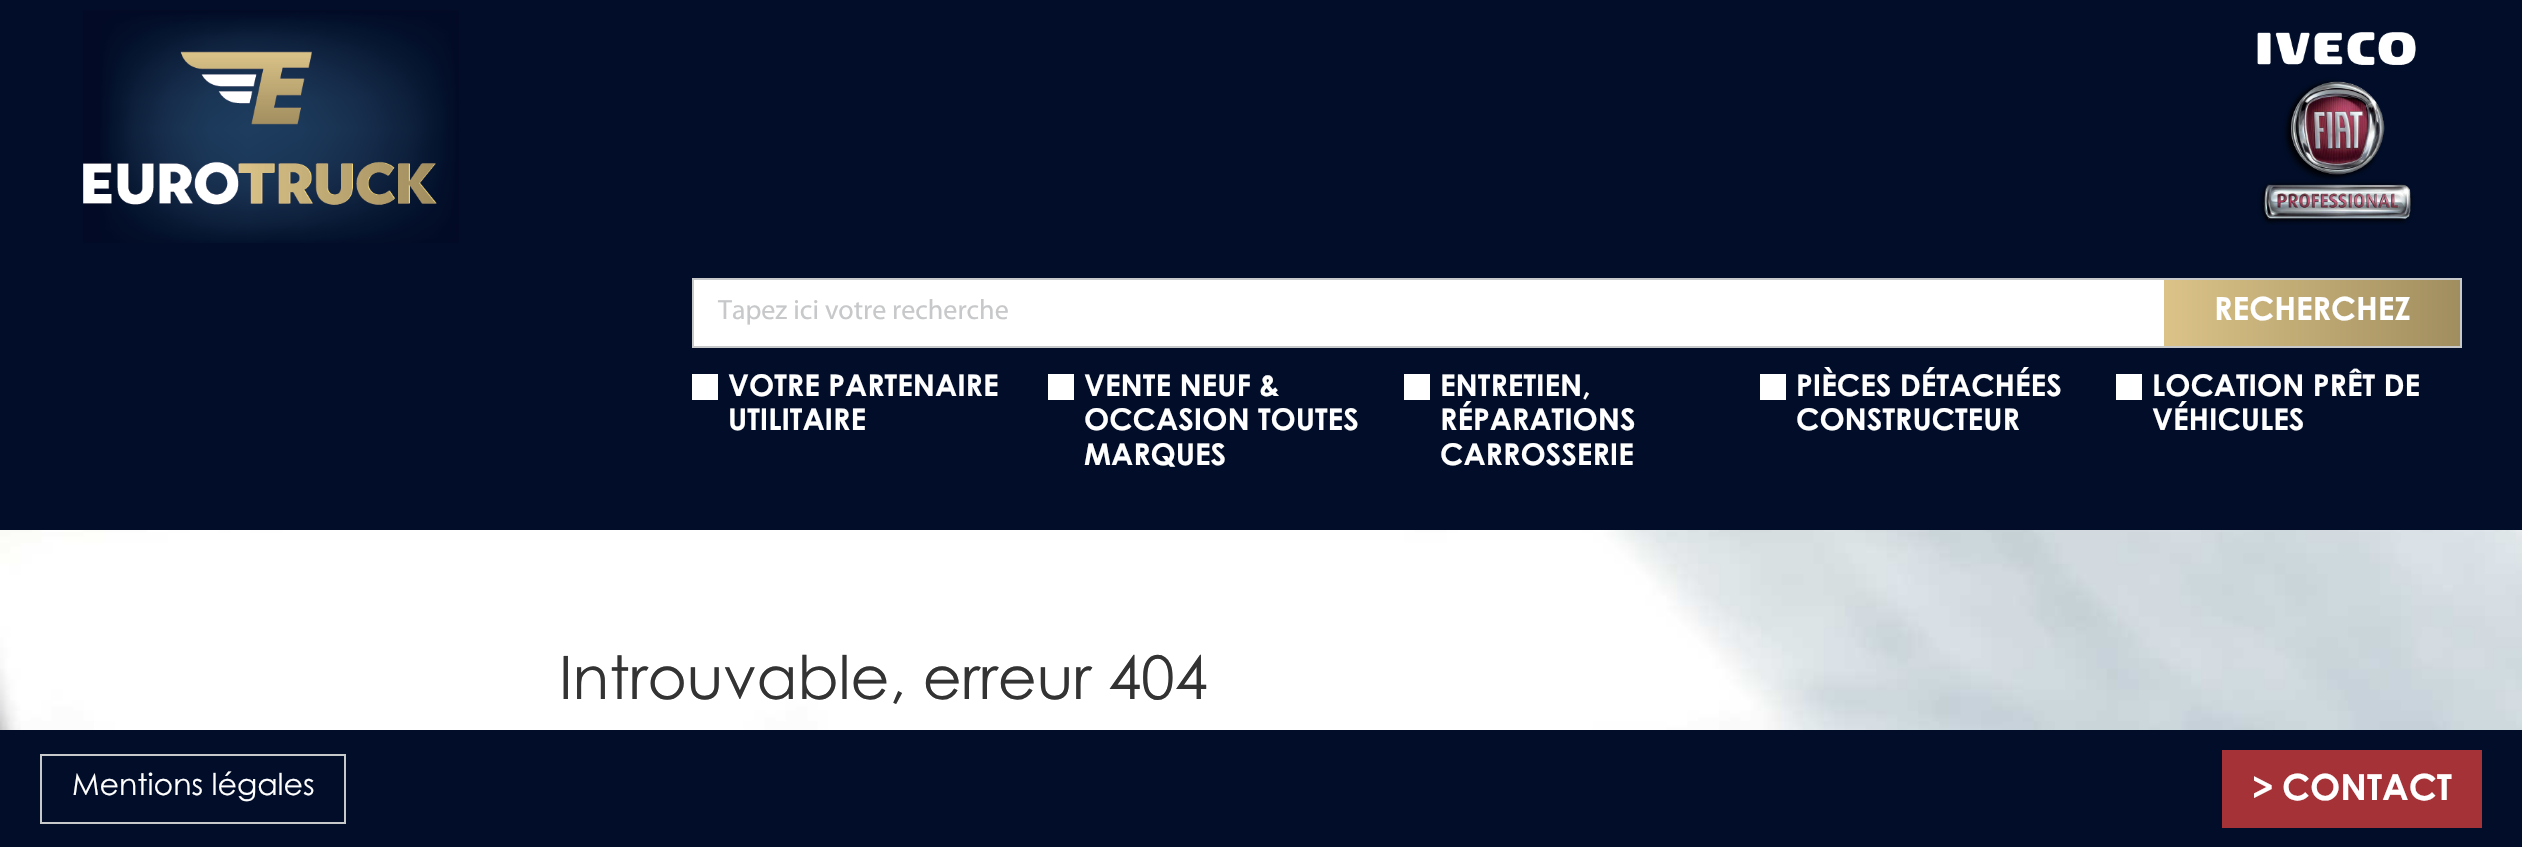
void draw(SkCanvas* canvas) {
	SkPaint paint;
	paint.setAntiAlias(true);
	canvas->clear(0xffffffff);
	canvas->drawImageRect(SkImages::DeferredFromEncodedData(SkData::MakeFromFileName("img1.png")), SkRect::MakeXYWH(0, 530, 2522, 200), SkSamplingOptions());
	paint.setColor(0xff010d29);
	canvas->drawRect(SkRect::MakeXYWH(0, 0, 2522, 530), paint);
	canvas->drawImageRect(SkImages::DeferredFromEncodedData(SkData::MakeFromFileName("img2.png")), SkRect::MakeXYWH(83, 10, 376, 233), SkSamplingOptions());
	canvas->drawImageRect(SkImages::DeferredFromEncodedData(SkData::MakeFromFileName("img3.png")), SkRect::MakeXYWH(2257, 32, 159, 193), SkSamplingOptions());
	paint.setColor(0xffffffff);
	canvas->drawRect(SkRect::MakeXYWH(694, 280, 1470, 66), paint);
	paint.setColor(0xffc7c8ca);
	canvas->drawRect(SkRect::MakeXYWH(692, 278, 1770, 2), paint);
	canvas->drawRect(SkRect::MakeXYWH(692, 346, 1472, 2), paint);
	canvas->drawRect(SkRect::MakeXYWH(692, 278, 2, 70), paint);
	SkFont f1(fontMgr->matchFamilyStyle("Myriad", SkFontStyle::Normal()), 28);
	f1.setSubpixel(true);
	canvas->drawString("Tapez ici votre recherche", 718, 319, f1, paint);
	{
		const SkColor colors[] = {0xffdbc388, 0xffa18e5f};
		const float stops[] = {0, 1};
		const SkPoint ends[] = {{2164, 313}, {2460, 313}};
		paint.setShader(SkGradientShader::MakeLinear(ends, colors, stops, 2, SkTileMode::kClamp));
		paint.setAlpha(255);
	}
	canvas->drawRect(SkRect::MakeXYWH(2164, 280, 296, 66), paint);
	paint.setShader(nullptr);
	paint.setColor(0xffc7c8ca);
	canvas->drawRect(SkRect::MakeXYWH(2460, 278, 2, 70), paint);
	canvas->drawRect(SkRect::MakeXYWH(2164, 346, 298, 2), paint);
	SkFont f2(fontMgr->matchFamilyStyle("Century Gothic", SkFontStyle::Bold()), 32);
	f2.setSubpixel(true);
	paint.setColor(0xffffffff);
	canvas->drawString("RECHERCHEZ", 2214, 320, f2, paint);
	canvas->drawRect(SkRect::MakeXYWH(692, 374, 26, 26), paint);
	SkFont f3(fontMgr->matchFamilyStyle("Century Gothic", SkFontStyle::Bold()), 30);
	f3.setSubpixel(true);
	canvas->drawString("VOTRE PARTENAIRE", 728, 396, f3, paint);
	canvas->drawString("UTILITAIRE", 728, 430, f3, paint);
	canvas->drawRect(SkRect::MakeXYWH(1048, 374, 26, 26), paint);
	canvas->drawString("VENTE NEUF &", 1084, 396, f3, paint);
	canvas->drawString("OCCASION TOUTES", 1084, 430, f3, paint);
	canvas->drawString("MARQUES", 1084, 465, f3, paint);
	canvas->drawRect(SkRect::MakeXYWH(1404, 374, 26, 26), paint);
	canvas->drawString("ENTRETIEN,", 1440, 396, f3, paint);
	canvas->drawString("RÉPARATIONS", 1440, 430, f3, paint);
	canvas->drawString("CARROSSERIE", 1440, 465, f3, paint);
	canvas->drawRect(SkRect::MakeXYWH(1760, 374, 26, 26), paint);
	canvas->drawString("PIÈCES DÉTACHÉES", 1796, 396, f3, paint);
	canvas->drawString("CONSTRUCTEUR", 1796, 430, f3, paint);
	canvas->drawRect(SkRect::MakeXYWH(2116, 374, 26, 26), paint);
	canvas->drawString("LOCATION PRÊT DE", 2152, 396, f3, paint);
	canvas->drawString("VÉHICULES", 2152, 430, f3, paint);
	SkFont f4(fontMgr->matchFamilyStyle("Century Gothic", SkFontStyle(500, SkFontStyle::kNormal_Width, SkFontStyle::kUpright_Slant)), 60);
	f4.setSubpixel(true);
	paint.setColor(0xff333333);
	canvas->drawString("Introuvable, erreur 404", 559, 699, f4, paint);
	paint.setColor(0xff010d29);
	canvas->drawRect(SkRect::MakeXYWH(0, 730, 2522, 117), paint);
	paint.setStroke(true);
	paint.setStrokeWidth(2);
	paint.setColor(0xffc7c8ca);
	canvas->drawRect(SkRect::MakeXYWH(41, 755, 304, 68), paint);
	SkFont f5(fontMgr->matchFamilyStyle("Century Gothic", SkFontStyle(500, SkFontStyle::kNormal_Width, SkFontStyle::kUpright_Slant)), 30);
	f5.setSubpixel(true);
	paint.setStroke(false);
	paint.setColor(0xffffffff);
	canvas->drawString("Mentions légales", 72, 795, f5, paint);
	paint.setColor(0xffa43237);
	canvas->drawRect(SkRect::MakeXYWH(2222, 750, 260, 78), paint);
	SkFont f6(fontMgr->matchFamilyStyle("Century Gothic", SkFontStyle::Bold()), 36);
	f6.setSubpixel(true);
	paint.setColor(0xffffffff);
	canvas->drawString(">", 2252, 800, f6, paint);
	canvas->drawString("CONTACT", 2282, 800, f6, paint);
}
